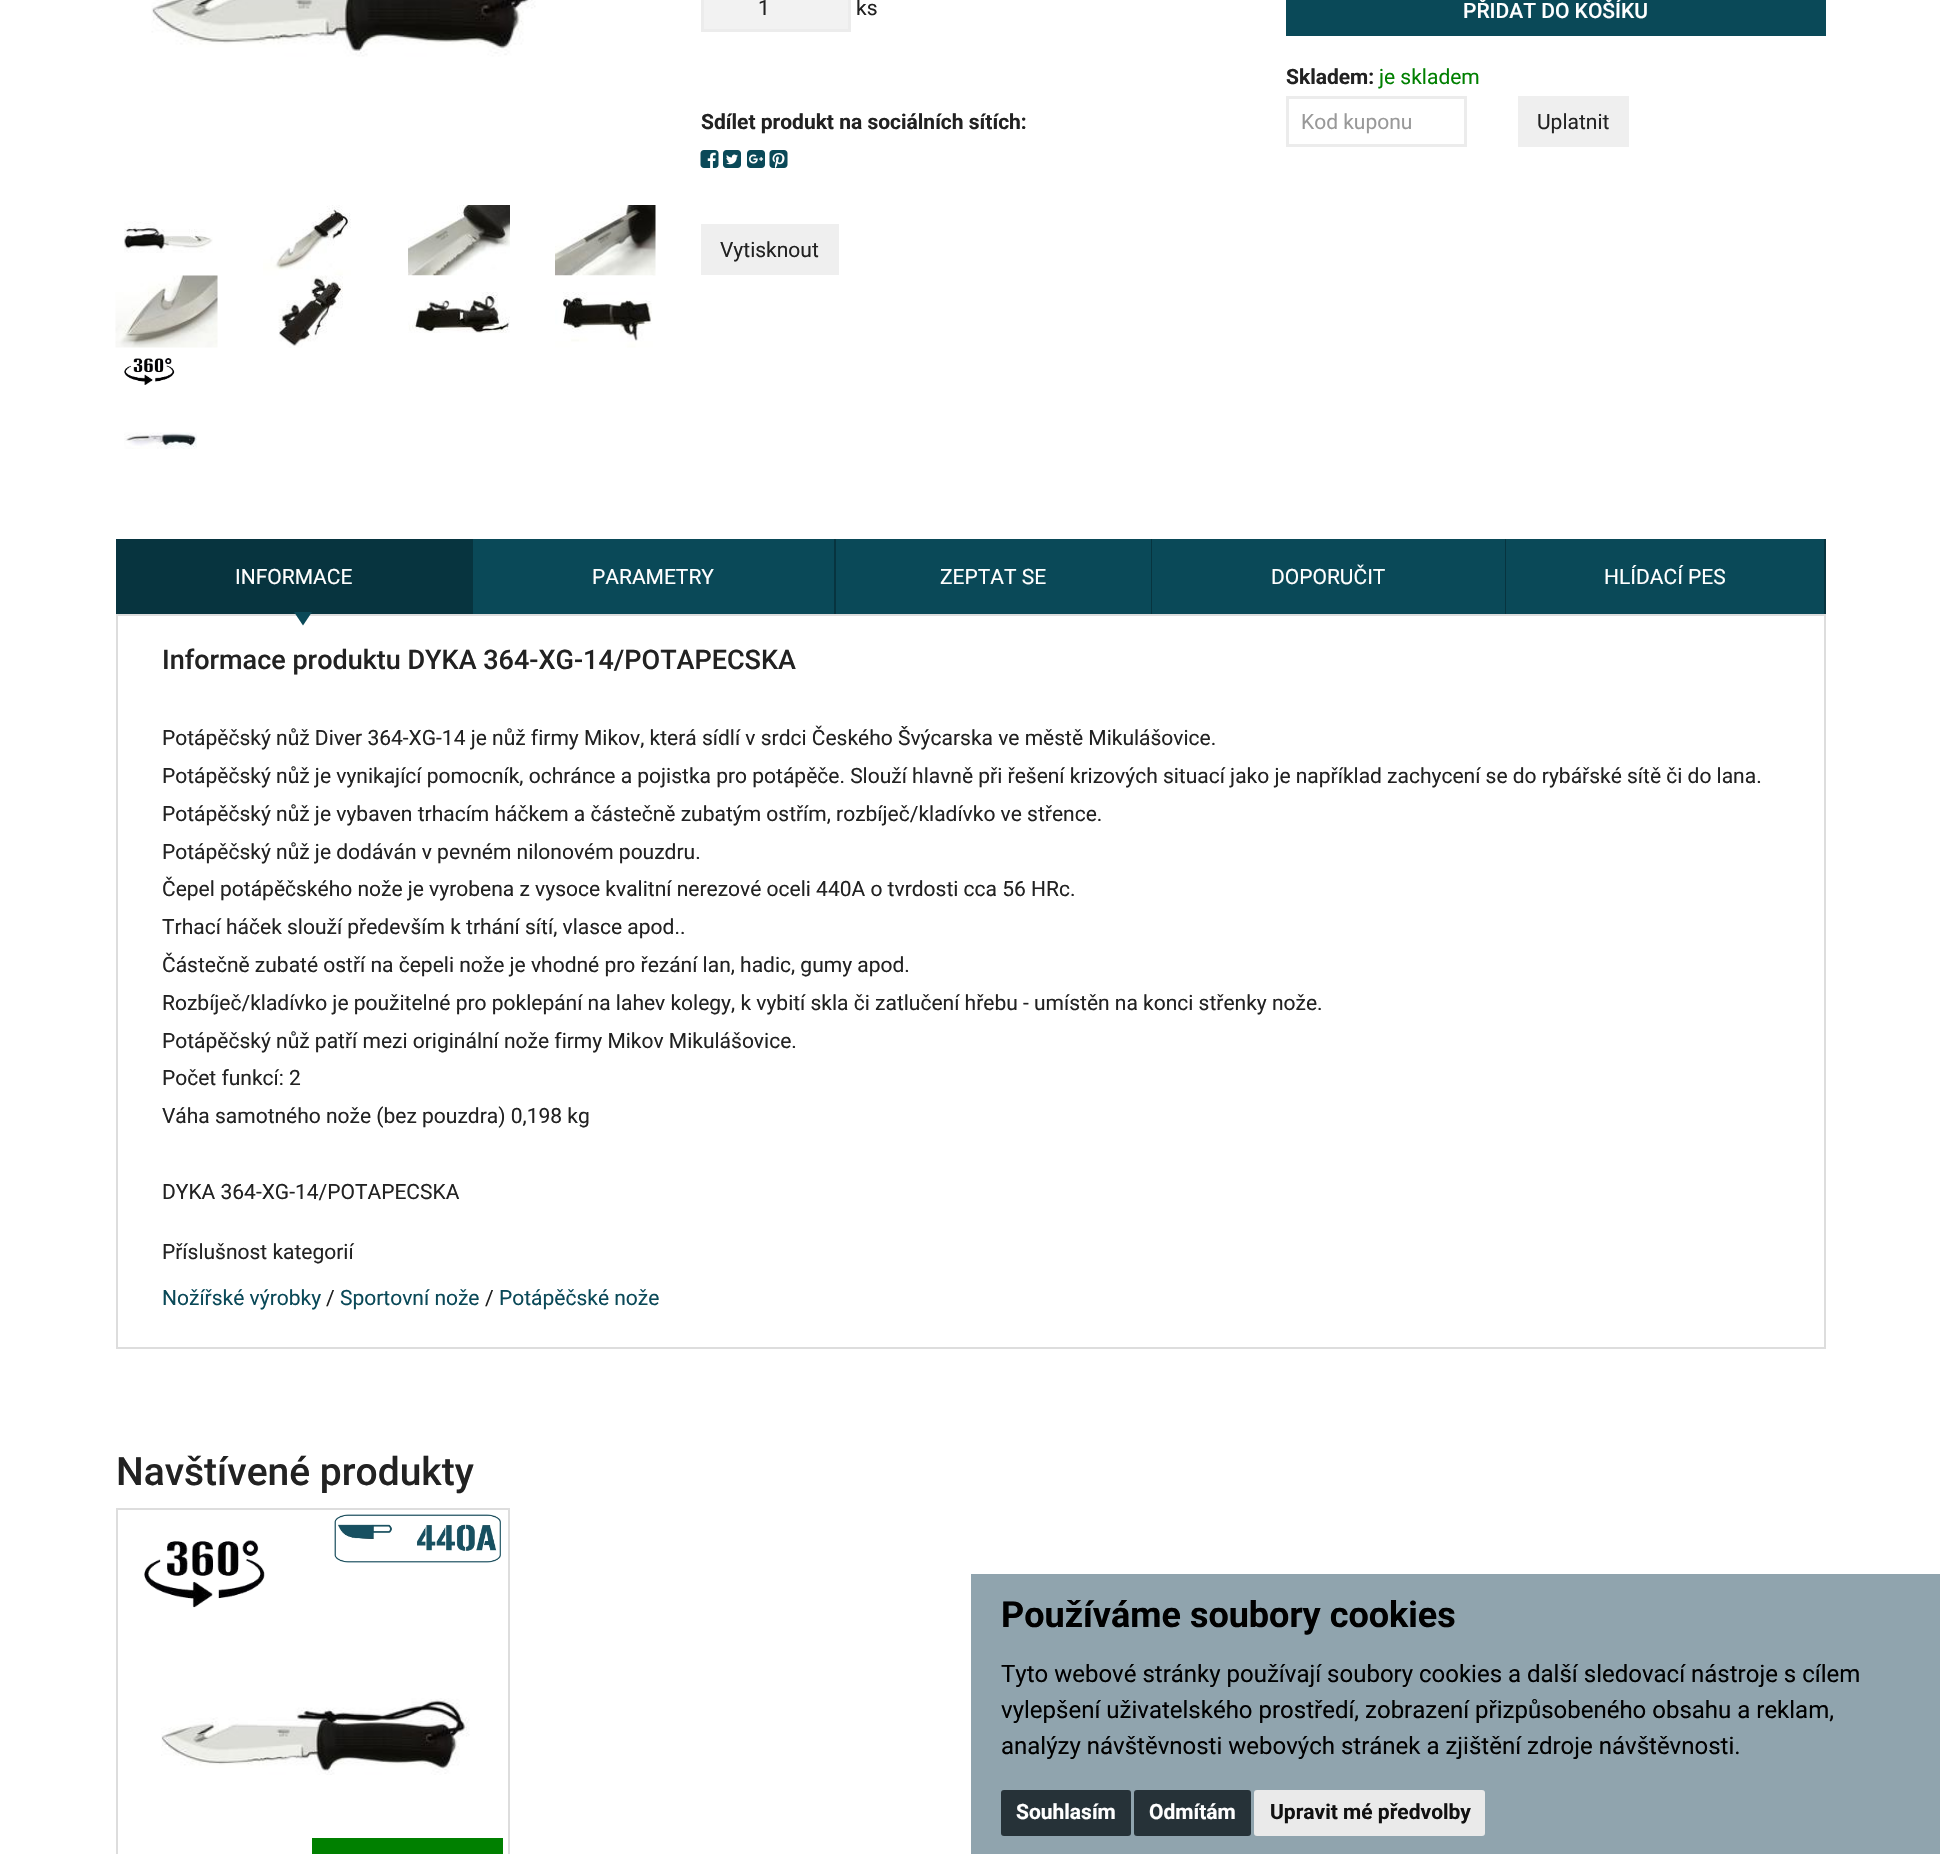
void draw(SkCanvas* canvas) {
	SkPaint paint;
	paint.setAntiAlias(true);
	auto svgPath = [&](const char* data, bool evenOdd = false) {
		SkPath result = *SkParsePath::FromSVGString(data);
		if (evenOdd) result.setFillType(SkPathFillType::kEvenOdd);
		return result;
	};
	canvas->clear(0xffffffff);
	canvas->drawImageRect(SkImages::DeferredFromEncodedData(SkData::MakeFromFileName("img1.png")), SkRect::MakeXYWH(151, 0, 385, 57), SkSamplingOptions());
	canvas->drawImageRect(SkImages::DeferredFromEncodedData(SkData::MakeFromFileName("img2.png")), SkRect::MakeXYWH(124, 221, 89, 32), SkSamplingOptions());
	canvas->drawImageRect(SkImages::DeferredFromEncodedData(SkData::MakeFromFileName("img3.png")), SkRect::MakeXYWH(263, 205, 88, 71), SkSamplingOptions());
	canvas->drawImageRect(SkImages::DeferredFromEncodedData(SkData::MakeFromFileName("img4.png")), SkRect::MakeXYWH(408, 205, 102, 71), SkSamplingOptions());
	canvas->drawImageRect(SkImages::DeferredFromEncodedData(SkData::MakeFromFileName("img5.png")), SkRect::MakeXYWH(555, 205, 101, 71), SkSamplingOptions());
	canvas->drawImageRect(SkImages::DeferredFromEncodedData(SkData::MakeFromFileName("img6.png")), SkRect::MakeXYWH(115, 275, 103, 73), SkSamplingOptions());
	canvas->drawImageRect(SkImages::DeferredFromEncodedData(SkData::MakeFromFileName("img7.png")), SkRect::MakeXYWH(278, 275, 65, 73), SkSamplingOptions());
	canvas->drawImageRect(SkImages::DeferredFromEncodedData(SkData::MakeFromFileName("img8.png")), SkRect::MakeXYWH(408, 275, 102, 58), SkSamplingOptions());
	canvas->drawImageRect(SkImages::DeferredFromEncodedData(SkData::MakeFromFileName("img9.png")), SkRect::MakeXYWH(555, 275, 98, 73), SkSamplingOptions());
	canvas->drawImageRect(SkImages::DeferredFromEncodedData(SkData::MakeFromFileName("img10.png")), SkRect::MakeXYWH(124, 358, 51, 27), SkSamplingOptions());
	canvas->drawImageRect(SkImages::DeferredFromEncodedData(SkData::MakeFromFileName("img11.png")), SkRect::MakeXYWH(124, 432, 73, 17), SkSamplingOptions());
	paint.setColor(0xfff2f2f2);
	canvas->drawRect(SkRect::MakeXYWH(702.5, -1.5, 147, 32), paint);
	paint.setStroke(true);
	paint.setStrokeWidth(3);
	paint.setColor(0xffececec);
	canvas->drawRect(SkRect::MakeXYWH(702.5, -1.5, 147, 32), paint);
	SkFont f1(fontMgr->matchFamilyStyle("Roboto", SkFontStyle::Normal()), 21);
	f1.setSubpixel(true);
	paint.setStroke(false);
	paint.setColor(0xff222222);
	canvas->drawString("1", 758, 15, f1, paint);
	canvas->drawString("ks", 856, 15, f1, paint);
	paint.setColor(0xff0a4958);
	canvas->drawRect(SkRect::MakeXYWH(1286, 0, 540, 36), paint);
	SkFont f2(fontMgr->matchFamilyStyle("Roboto", SkFontStyle(500, SkFontStyle::kNormal_Width, SkFontStyle::kUpright_Slant)), 21);
	f2.setSubpixel(true);
	paint.setColor(0xffffffff);
	canvas->drawString("PŘIDAT DO KOŠÍKU", 1463, 18, f2, paint);
	SkFont f3(fontMgr->matchFamilyStyle("Roboto", SkFontStyle::Bold()), 21);
	f3.setSubpixel(true);
	paint.setColor(0xff222222);
	canvas->drawString("Skladem:", 1286, 84, f3, paint);
	paint.setColor(0xff008000);
	canvas->drawString("je skladem", 1379, 84, f1, paint);
	paint.setColor(0xff222222);
	canvas->drawString("Sdílet produkt na sociálních sítích:", 701, 129, f3, paint);
	canvas->drawImageRect(SkImages::DeferredFromEncodedData(SkData::MakeFromFileName("img12.png")), SkRect::MakeXYWH(700, 150, 19, 18), SkSamplingOptions());
	canvas->drawImageRect(SkImages::DeferredFromEncodedData(SkData::MakeFromFileName("img13.png")), SkRect::MakeXYWH(723, 150, 18, 18), SkSamplingOptions());
	canvas->drawImageRect(SkImages::DeferredFromEncodedData(SkData::MakeFromFileName("img14.png")), SkRect::MakeXYWH(747, 150, 18, 18), SkSamplingOptions());
	canvas->drawImageRect(SkImages::DeferredFromEncodedData(SkData::MakeFromFileName("img15.png")), SkRect::MakeXYWH(769, 150, 19, 18), SkSamplingOptions());
	paint.setStroke(true);
	paint.setColor(0xffececec);
	canvas->drawRect(SkRect::MakeXYWH(1287.5, 97.5, 178, 48), paint);
	paint.setStroke(false);
	paint.setColor(0xff999999);
	canvas->drawString("Kod kuponu", 1301, 129, f1, paint);
	paint.setColor(0xffefefef);
	canvas->drawRect(SkRect::MakeXYWH(1518, 96, 111, 51), paint);
	paint.setColor(0xff222222);
	canvas->drawString("Uplatnit", 1537, 129, f1, paint);
	paint.setColor(0xffefefef);
	canvas->drawRect(SkRect::MakeXYWH(701, 224, 138, 51), paint);
	paint.setColor(0xff222222);
	canvas->drawString("Vytisknout", 720, 257, f1, paint);
	paint.setColor(0xff07343f);
	canvas->drawRect(SkRect::MakeXYWH(116, 539, 357, 75), paint);
	paint.setColor(0xffffffff);
	canvas->drawString("INFORMACE", 235, 584, f1, paint);
	paint.setStroke(true);
	paint.setStrokeWidth(2);
	paint.setColor(0xffdddddd);
	canvas->drawRect(SkRect::MakeXYWH(117, 615, 1708, 733), paint);
	paint.setStroke(false);
	paint.setColor(0xff0a4958);
	canvas->drawPath(svgPath("M294 612H312L303 625.5Z"), paint);
	canvas->drawRect(SkRect::MakeXYWH(473, 539, 361, 75), paint);
	paint.setColor(0xff07343f);
	canvas->drawRect(SkRect::MakeXYWH(834, 539, 2, 75), paint);
	paint.setColor(0xffffffff);
	canvas->drawString("PARAMETRY", 592, 584, f1, paint);
	paint.setColor(0xff0a4958);
	canvas->drawRect(SkRect::MakeXYWH(836, 539, 315, 75), paint);
	paint.setColor(0xff07343f);
	canvas->drawRect(SkRect::MakeXYWH(1151, 539, 1, 75), paint);
	paint.setColor(0xffffffff);
	canvas->drawString("ZEPTAT SE", 940, 584, f1, paint);
	paint.setColor(0xff0a4958);
	canvas->drawRect(SkRect::MakeXYWH(1152, 539, 353, 75), paint);
	paint.setColor(0xff07343f);
	canvas->drawRect(SkRect::MakeXYWH(1505, 539, 1, 75), paint);
	paint.setColor(0xffffffff);
	canvas->drawString("DOPORUČIT", 1271, 584, f1, paint);
	paint.setColor(0xff0a4958);
	canvas->drawRect(SkRect::MakeXYWH(1506, 539, 318, 75), paint);
	paint.setColor(0xff07343f);
	canvas->drawRect(SkRect::MakeXYWH(1824, 539, 2, 75), paint);
	paint.setColor(0xffffffff);
	canvas->drawString("HLÍDACÍ PES", 1604, 584, f1, paint);
	SkFont f4(fontMgr->matchFamilyStyle("Roboto", SkFontStyle(500, SkFontStyle::kNormal_Width, SkFontStyle::kUpright_Slant)), 27);
	f4.setSubpixel(true);
	paint.setColor(0xff222222);
	canvas->drawString("Informace produktu DYKA 364-XG-14/POTAPECSKA", 162, 669, f4, paint);
	canvas->drawString("Potápěčský nůž Diver 364-XG-14 je nůž firmy Mikov, která sídlí v srdci Českého Švýcarska ve městě Mikulášovice.", 162, 745, f1, paint);
	canvas->drawString("Potápěčský nůž je vynikající pomocník, ochránce a pojistka pro potápěče. Slouží hlavně při řešení krizových situací jako je například zachycení se do rybářské sítě či do lana.", 162, 783, f1, paint);
	canvas->drawString("Potápěčský nůž je vybaven trhacím háčkem a částečně zubatým ostřím, rozbíječ/kladívko ve střence.", 162, 821, f1, paint);
	canvas->drawString("Potápěčský nůž je dodáván v pevném nilonovém pouzdru.", 162, 859, f1, paint);
	canvas->drawString("Čepel potápěčského nože je vyrobena z vysoce kvalitní nerezové oceli 440A o tvrdosti cca 56 HRc.", 162, 896, f1, paint);
	canvas->drawString("Trhací háček slouží především k trhání sítí, vlasce apod..", 162, 934, f1, paint);
	canvas->drawString("Částečně zubaté ostří na čepeli nože je vhodné pro řezání lan, hadic, gumy apod.", 162, 972, f1, paint);
	canvas->drawString("Rozbíječ/kladívko je použitelné pro poklepání na lahev kolegy, k vybití skla či zatlučení hřebu - umístěn na konci střenky nože.", 162, 1010, f1, paint);
	canvas->drawString("Potápěčský nůž patří mezi originální nože firmy Mikov Mikulášovice.", 162, 1048, f1, paint);
	canvas->drawString("Počet funkcí: 2", 162, 1085, f1, paint);
	canvas->drawString("Váha samotného nože (bez pouzdra) 0,198 kg", 162, 1123, f1, paint);
	canvas->drawString("DYKA 364-XG-14/POTAPECSKA", 162, 1199, f1, paint);
	canvas->drawString("Příslušnost kategorií", 162, 1259, f1, paint);
	paint.setColor(0xff0a4958);
	canvas->drawString("Nožířské výrobky", 162, 1305, f1, paint);
	paint.setColor(0xff222222);
	canvas->drawString("/", 326, 1305, f1, paint);
	paint.setColor(0xff0a4958);
	canvas->drawString("Sportovní nože", 340, 1305, f1, paint);
	paint.setColor(0xff222222);
	canvas->drawString("/", 485, 1305, f1, paint);
	paint.setColor(0xff0a4958);
	canvas->drawString("Potápěčské nože", 499, 1305, f1, paint);
	SkFont f5(fontMgr->matchFamilyStyle("Roboto", SkFontStyle(500, SkFontStyle::kNormal_Width, SkFontStyle::kUpright_Slant)), 39);
	f5.setSubpixel(true);
	paint.setColor(0xff222222);
	canvas->drawString("Navštívené produkty", 116, 1485, f5, paint);
	paint.setStroke(true);
	paint.setColor(0xffdddddd);
	canvas->drawRect(SkRect::MakeXYWH(117, 1509, 392, 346), paint);
	canvas->drawImageRect(SkImages::DeferredFromEncodedData(SkData::MakeFromFileName("img16.png")), SkRect::MakeXYWH(144, 1540, 121, 68), SkSamplingOptions());
	canvas->drawImageRect(SkImages::DeferredFromEncodedData(SkData::MakeFromFileName("img17.png")), SkRect::MakeXYWH(334, 1514, 167, 49), SkSamplingOptions());
	canvas->drawImageRect(SkImages::DeferredFromEncodedData(SkData::MakeFromFileName("img18.png")), SkRect::MakeXYWH(161, 1698, 309, 77), SkSamplingOptions());
	paint.setStroke(false);
	paint.setColor(0xff008000);
	canvas->drawRect(SkRect::MakeXYWH(312, 1838, 191, 16), paint);
	paint.setColor(0xff90a4ae);
	canvas->drawRect(SkRect::MakeXYWH(971, 1574, 969, 280), paint);
	SkFont f6(fontMgr->matchFamilyStyle("Roboto", SkFontStyle::Bold()), 36);
	f6.setSubpixel(true);
	paint.setColor(0xff000000);
	canvas->drawString("Používáme soubory cookies", 1001, 1627, f6, paint);
	SkFont f7(fontMgr->matchFamilyStyle("Roboto", SkFontStyle::Normal()), 24);
	f7.setSubpixel(true);
	canvas->drawString("Tyto webové stránky používají soubory cookies a další sledovací nástroje s cílem", 1001, 1682, f7, paint);
	canvas->drawString("vylepšení uživatelského prostředí, zobrazení přizpůsobeného obsahu a reklam,", 1001, 1718, f7, paint);
	canvas->drawString("analýzy návštěvnosti webových stránek a zjištění zdroje návštěvnosti.", 1001, 1754, f7, paint);
	paint.setColor(0xff263238);
	canvas->drawRoundRect(SkRect::MakeXYWH(1001, 1790, 130, 46), 3, 3, paint);
	paint.setColor(0xffffffff);
	canvas->drawString("Souhlasím", 1016, 1819, f3, paint);
	paint.setColor(0xff263238);
	canvas->drawRoundRect(SkRect::MakeXYWH(1134, 1790, 117, 46), 3, 3, paint);
	paint.setColor(0xffffffff);
	canvas->drawString("Odmítám", 1149, 1819, f3, paint);
	paint.setColor(0xffeaeaea);
	canvas->drawRoundRect(SkRect::MakeXYWH(1254, 1790, 231, 46), 3, 3, paint);
	paint.setColor(0xff111111);
	canvas->drawString("Upravit mé předvolby", 1270, 1819, f3, paint);
}
